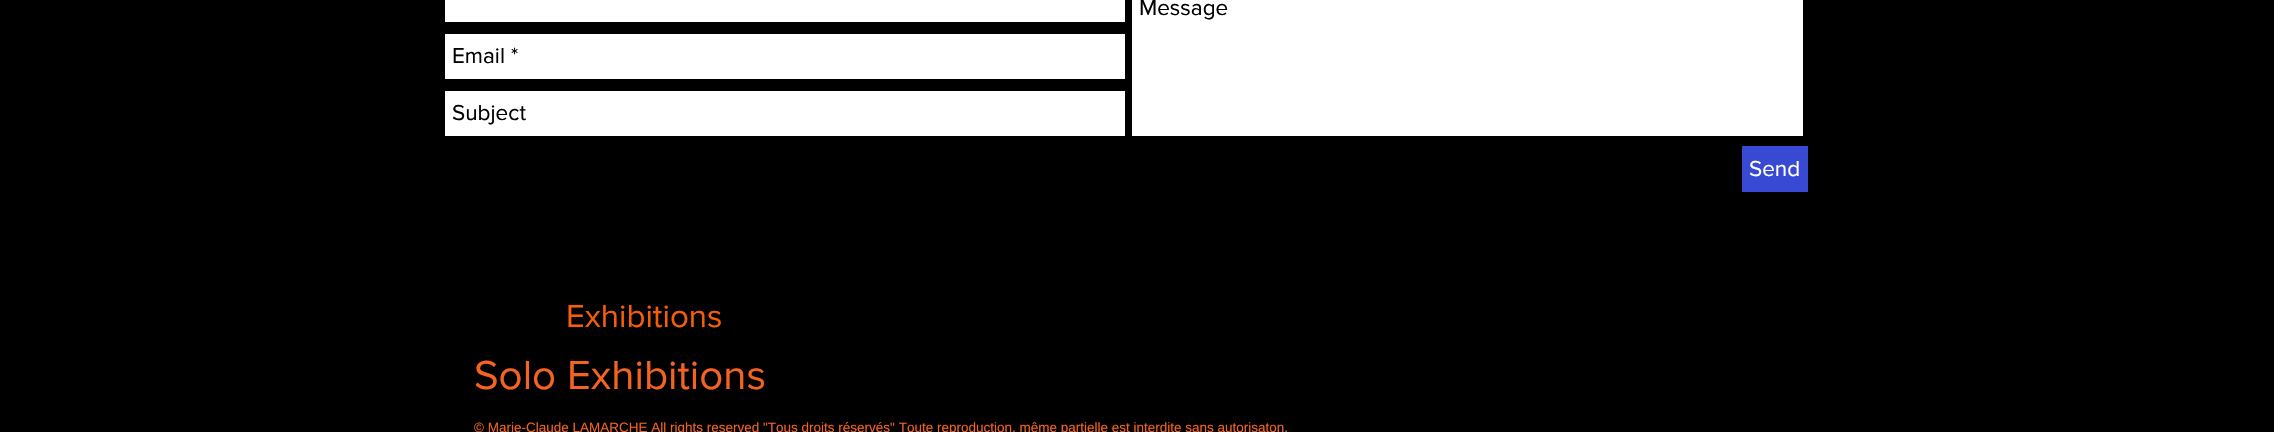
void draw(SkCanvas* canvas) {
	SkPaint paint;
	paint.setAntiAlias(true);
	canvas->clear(0xff000000);
	paint.setColor(0xffffffff);
	canvas->drawRect(SkRect::MakeXYWH(445, 0, 680, 22), paint);
	canvas->drawRect(SkRect::MakeXYWH(1132, 0, 671, 136), paint);
	SkFont f1(fontMgr->matchFamilyStyle("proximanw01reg", SkFontStyle::Normal()), 22.5);
	f1.setSubpixel(true);
	paint.setColor(0xff000000);
	canvas->drawString("Message", 1139, 15, f1, paint);
	paint.setColor(0xffffffff);
	canvas->drawRect(SkRect::MakeXYWH(445, 34, 680, 45), paint);
	paint.setColor(0xff000000);
	canvas->drawString("Email *", 452, 63, f1, paint);
	paint.setColor(0xffffffff);
	canvas->drawRect(SkRect::MakeXYWH(445, 91, 680, 45), paint);
	paint.setColor(0xff000000);
	canvas->drawString("Subject", 452, 120, f1, paint);
	paint.setColor(0xff384ad3);
	canvas->drawRect(SkRect::MakeXYWH(1742, 146, 66, 46), paint);
	paint.setColor(0xffffffff);
	canvas->drawString("Send", 1749, 176, f1, paint);
	SkFont f2(fontMgr->matchFamilyStyle("proximanw01reg", SkFontStyle::Normal()), 33);
	f2.setSubpixel(true);
	paint.setColor(0xfff55d07);
	canvas->drawString("Exhibitions", 566, 327, f2, paint);
	SkFont f3(fontMgr->matchFamilyStyle("proximanw01reg", SkFontStyle::Normal()), 42);
	f3.setSubpixel(true);
	paint.setColor(0xfff46320);
	canvas->drawString("Solo Exhibitions", 474, 389, f3, paint);
	SkFont f4(fontMgr->matchFamilyStyle("Liberation Sans", SkFontStyle::Normal()), 13.5);
	f4.setSubpixel(true);
	canvas->drawString("© Marie-Claude LAMARCHE All rights reserved \"Tous droits réservés\" Toute reproduction, même partielle est interdite sans autorisaton.", 474, 432, f4, paint);
}
